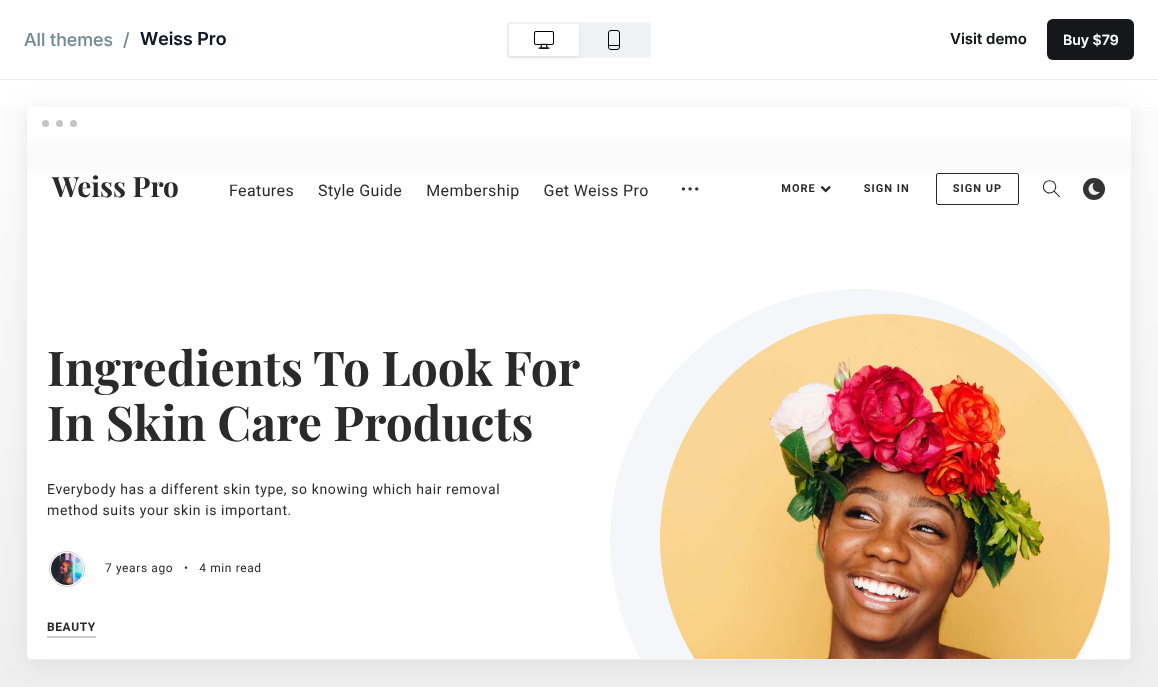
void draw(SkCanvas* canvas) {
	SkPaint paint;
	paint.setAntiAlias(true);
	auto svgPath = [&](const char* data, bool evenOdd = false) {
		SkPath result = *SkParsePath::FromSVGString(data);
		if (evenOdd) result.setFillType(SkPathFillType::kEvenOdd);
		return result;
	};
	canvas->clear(0xffffffff);
	{
		const SkColor colors[] = {0xffffffff, 0xffefefef};
		const float stops[] = {0, 1};
		const SkPoint ends[] = {{579, 0}, {579, 687}};
		paint.setShader(SkGradientShader::MakeLinear(ends, colors, stops, 2, SkTileMode::kClamp));
		paint.setAlpha(255);
	}
	canvas->drawRect(SkRect::MakeXYWH(0, 107, 1158, 580), paint);
	paint.setShader(nullptr);
	paint.setColor(0xffe5eff5);
	canvas->drawRect(SkRect::MakeXYWH(0, 79, 1158, 1), paint);
	SkFont f1(fontMgr->matchFamilyStyle("Inter", SkFontStyle(500, SkFontStyle::kNormal_Width, SkFontStyle::kUpright_Slant)), 18);
	f1.setSubpixel(true);
	paint.setColor(0xff738a94);
	canvas->drawString("All themes", 24, 46, f1, paint);
	canvas->drawString("/", 123, 46, f1, paint);
	SkFont f2(fontMgr->matchFamilyStyle("Inter", SkFontStyle(600, SkFontStyle::kNormal_Width, SkFontStyle::kUpright_Slant)), 18);
	f2.setSubpixel(true);
	paint.setColor(0xff111827);
	canvas->drawString("Weiss Pro", 140, 45, f2, paint);
	paint.setColor(0xfff1f2f5);
	canvas->drawRoundRect(SkRect::MakeXYWH(507, 22, 144, 36), 4, 4, paint);
	paint.setColor(0x14000000);
	paint.setMaskFilter(SkMaskFilter::MakeBlur(kNormal_SkBlurStyle, 2));
	canvas->drawRoundRect(SkRect::MakeXYWH(509, 26, 70, 32), 3, 3, paint);
	paint.setMaskFilter(nullptr);
	paint.setColor(0xffffffff);
	canvas->drawRoundRect(SkRect::MakeXYWH(509, 24, 70, 32), 3, 3, paint);
	canvas->drawImageRect(SkImages::DeferredFromEncodedData(SkData::MakeFromFileName("img1.png")), SkRect::MakeXYWH(534, 31, 20, 18), SkSamplingOptions());
	paint.setStroke(true);
	paint.setStrokeWidth(1);
	paint.setColor(0xff000000);
	canvas->drawRoundRect(SkRect::MakeXYWH(608.5, 30.5, 11, 19), 2.5, 2.5, paint);
	paint.setStrokeWidth(1.2);
	paint.setStrokeCap(SkPaint::kRound_Cap);
	paint.setStrokeJoin(SkPaint::kRound_Join);
	canvas->drawPath(svgPath("M608.5 45.5H619.5"), paint);
	SkFont f3(fontMgr->matchFamilyStyle("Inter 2", SkFontStyle(600, SkFontStyle::kNormal_Width, SkFontStyle::kUpright_Slant)), 15);
	f3.setSubpixel(true);
	paint.setStroke(false);
	paint.setColor(0xff15171a);
	canvas->drawString("Visit demo", 950, 44, f3, paint);
	paint.setColor(0x1a000000);
	paint.setMaskFilter(SkMaskFilter::MakeBlur(kNormal_SkBlurStyle, 0.5));
	canvas->drawRoundRect(SkRect::MakeXYWH(1047, 19, 87, 41), 6, 6, paint);
	paint.setMaskFilter(nullptr);
	paint.setColor(0xff15171a);
	canvas->drawRoundRect(SkRect::MakeXYWH(1047, 19, 87, 41), 6, 6, paint);
	SkFont f4(fontMgr->matchFamilyStyle("Inter 2", SkFontStyle(600, SkFontStyle::kNormal_Width, SkFontStyle::kUpright_Slant)), 14);
	f4.setSubpixel(true);
	paint.setColor(0xffffffff);
	canvas->drawString("Buy $79", 1063, 45, f4, paint);
	canvas->save();
	canvas->clipPath(svgPath("M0 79H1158V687H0ZM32 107H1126C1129 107 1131 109 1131 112V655C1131 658 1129 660 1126 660H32C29 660 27 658 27 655V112C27 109 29 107 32 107Z", true), true);
	paint.setColor(0x14000000);
	paint.setMaskFilter(SkMaskFilter::MakeBlur(kNormal_SkBlurStyle, 10));
	canvas->drawRoundRect(SkRect::MakeXYWH(27, 110, 1104, 553), 5, 5, paint);
	paint.setMaskFilter(nullptr);
	canvas->restore();
	paint.setColor(0xffffffff);
	canvas->drawPath(svgPath("M32 107H1126C1129 107 1131 109 1131 112V139H27V112C27 109 29 107 32 107Z"), paint);
	paint.setColor(0xffc4c4c4);
	canvas->drawCircle(45.5, 123.5, 3.5, paint);
	canvas->drawCircle(59.5, 123.5, 3.5, paint);
	canvas->drawCircle(73.5, 123.5, 3.5, paint);
	canvas->drawImageRect(SkImages::DeferredFromEncodedData(SkData::MakeFromFileName("img2.png")), SkRect::MakeXYWH(27, 173, 1103, 486), SkSamplingOptions());
}
